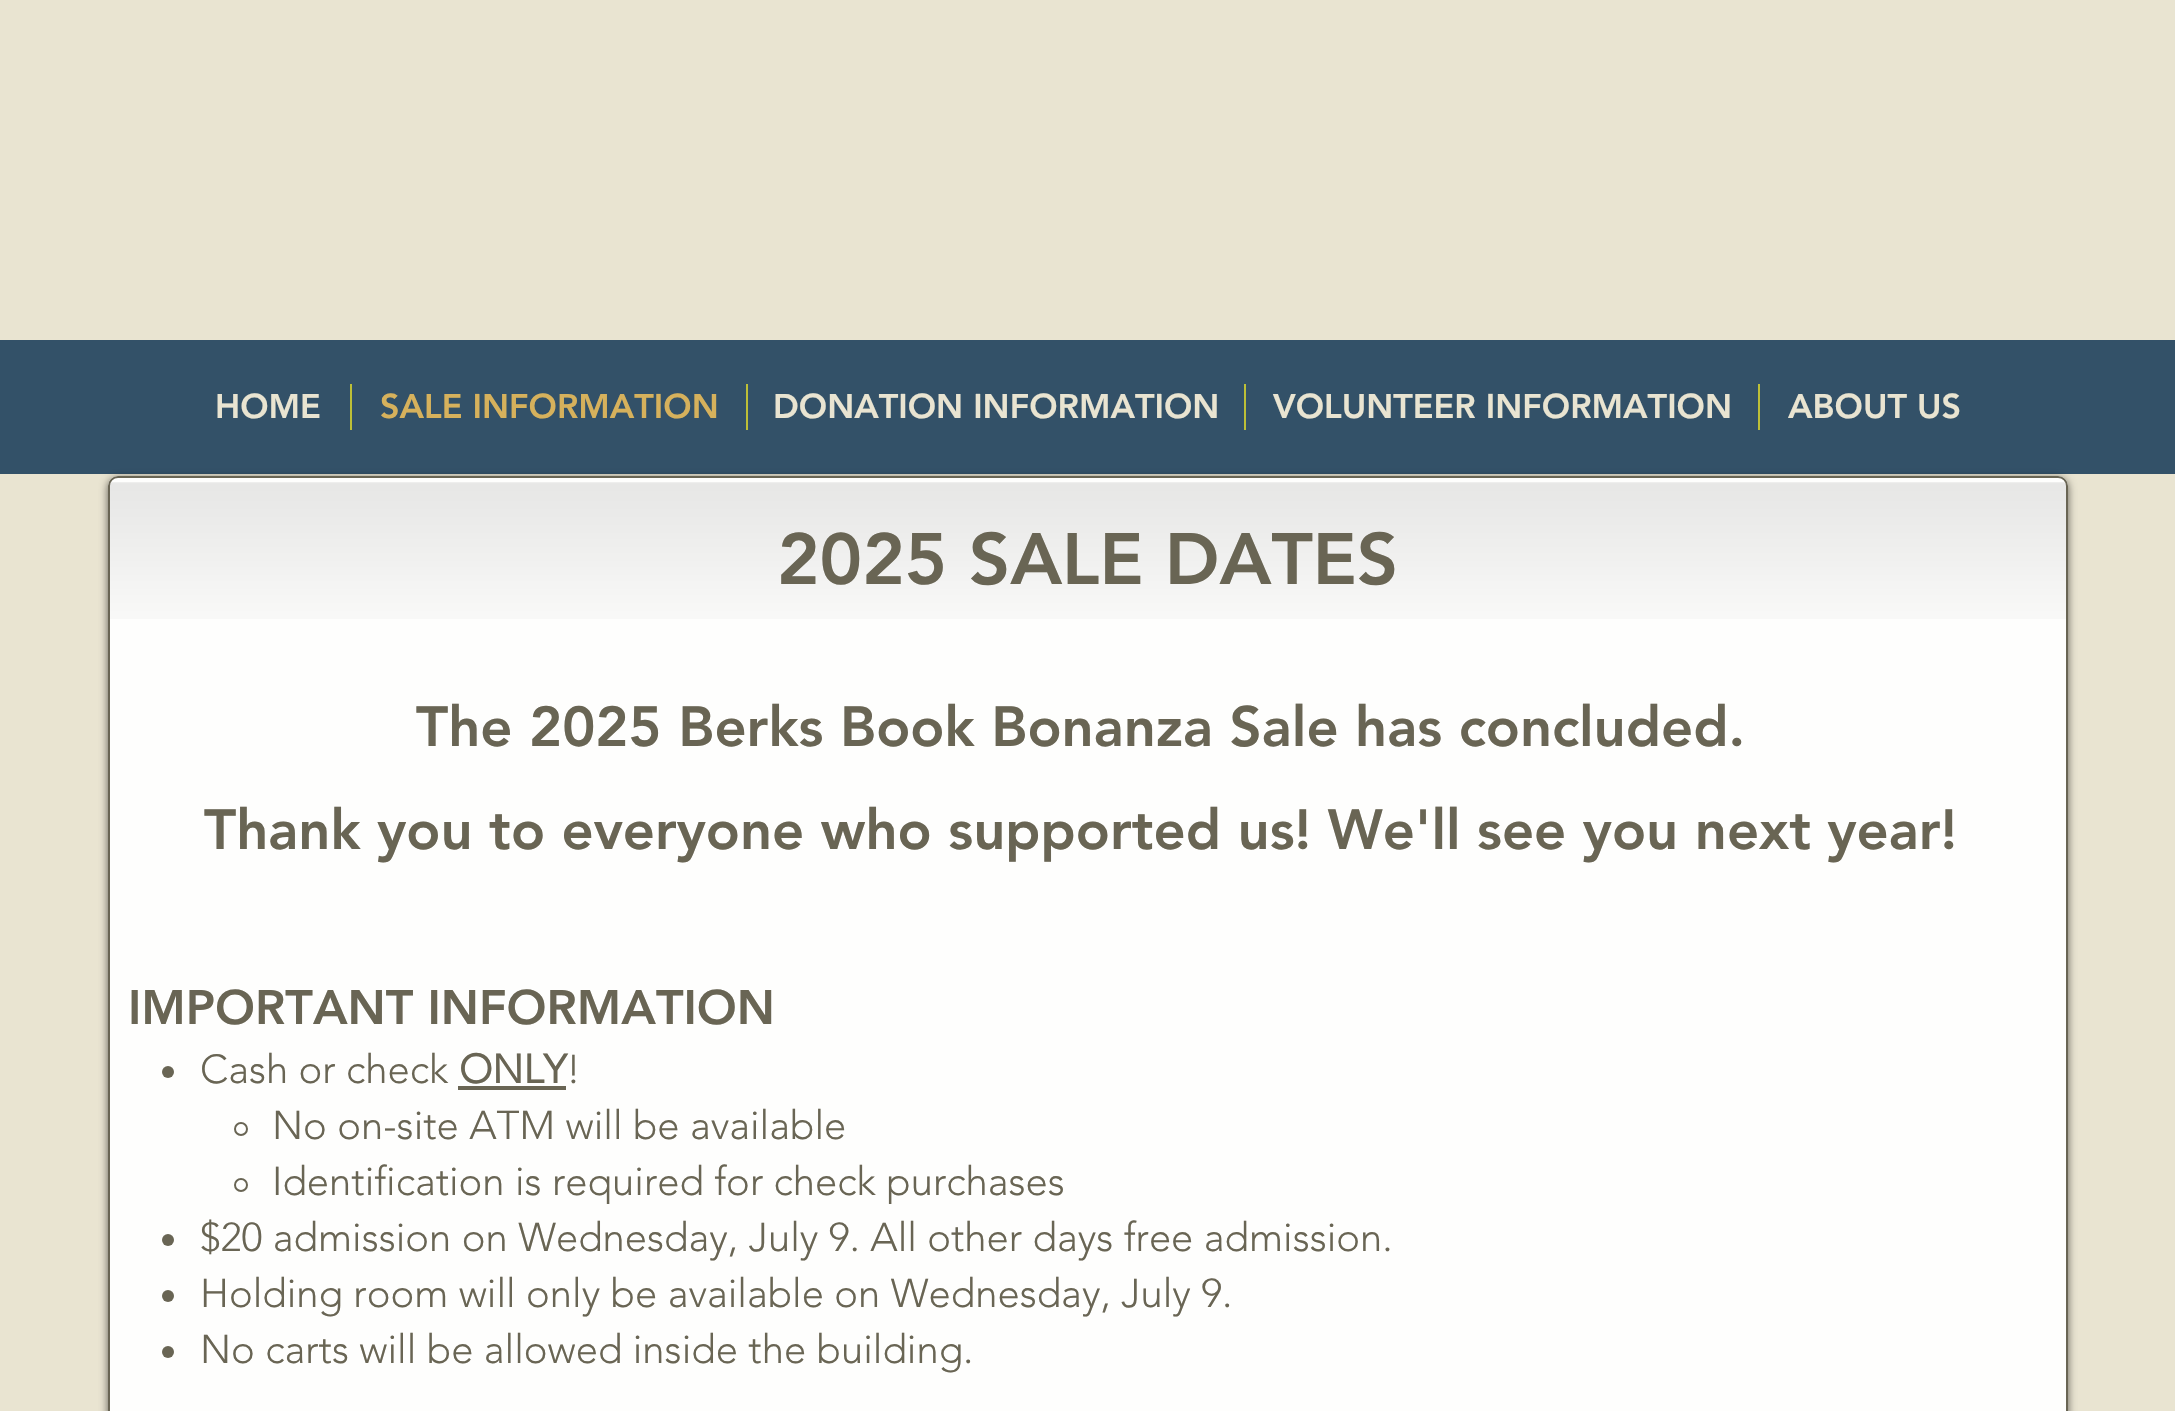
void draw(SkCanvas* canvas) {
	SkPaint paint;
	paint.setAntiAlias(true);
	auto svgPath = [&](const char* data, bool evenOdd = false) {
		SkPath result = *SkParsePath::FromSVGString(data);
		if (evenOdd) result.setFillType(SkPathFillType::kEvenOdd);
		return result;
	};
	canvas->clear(0xffe9e4d1);
	paint.setColor(0xff335168);
	canvas->drawRect(SkRect::MakeXYWH(0, 340, 2175, 134), paint);
	SkFont f1(fontMgr->matchFamilyStyle("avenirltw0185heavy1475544", SkFontStyle(900, SkFontStyle::kNormal_Width, SkFontStyle::kUpright_Slant)), 34);
	f1.setSubpixel(true);
	paint.setColor(0xffe9e4d1);
	canvas->drawString("HOME", 215, 418, f1, paint);
	paint.setColor(0xffbdbf37);
	canvas->drawRect(SkRect::MakeXYWH(350, 384, 2, 46), paint);
	paint.setColor(0xffd6b15c);
	canvas->drawString("SALE INFORMATION", 380, 418, f1, paint);
	paint.setColor(0xffbdbf37);
	canvas->drawRect(SkRect::MakeXYWH(746, 384, 2, 46), paint);
	paint.setColor(0xffe9e4d1);
	canvas->drawString("DONATION INFORMATION", 773, 418, f1, paint);
	paint.setColor(0xffbdbf37);
	canvas->drawRect(SkRect::MakeXYWH(1244, 384, 2, 46), paint);
	paint.setColor(0xffe9e4d1);
	canvas->drawString("VOLUNTEER INFORMATION", 1273, 418, f1, paint);
	paint.setColor(0xffbdbf37);
	canvas->drawRect(SkRect::MakeXYWH(1758, 384, 2, 46), paint);
	paint.setColor(0xffe9e4d1);
	canvas->drawString("ABOUT US", 1788, 418, f1, paint);
	canvas->save();
	canvas->clipPath(svgPath("M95 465H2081V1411H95ZM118 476H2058C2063.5 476 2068 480.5 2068 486V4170C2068 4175.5 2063.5 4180 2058 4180H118C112.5 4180 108 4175.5 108 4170V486C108 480.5 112.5 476 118 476Z", true), true);
	paint.setColor(0x99000000);
	paint.setMaskFilter(SkMaskFilter::MakeBlur(kNormal_SkBlurStyle, 4));
	canvas->drawRoundRect(SkRect::MakeXYWH(108, 478, 1960, 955), 10, 10, paint);
	paint.setMaskFilter(nullptr);
	canvas->restore();
	paint.setColor(0xf2ffffff);
	canvas->drawRoundRect(SkRect::MakeXYWH(108, 476, 1960, 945), 10, 10, paint);
	canvas->drawImageRect(SkImages::DeferredFromEncodedData(SkData::MakeFromFileName("img1.png")), SkRect::MakeXYWH(108, 482, 1960, 137), SkSamplingOptions());
	paint.setStroke(true);
	paint.setStrokeWidth(2);
	paint.setColor(0xff696554);
	canvas->drawRoundRect(SkRect::MakeXYWH(109, 477, 1958, 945), 9, 9, paint);
	SkFont f2(fontMgr->matchFamilyStyle("avenirltw0185heavy1475544", SkFontStyle(900, SkFontStyle::kNormal_Width, SkFontStyle::kUpright_Slant)), 72);
	f2.setSubpixel(true);
	paint.setStroke(false);
	canvas->drawString("2025 SALE DATES", 777, 584, f2, paint);
	SkFont f3(fontMgr->matchFamilyStyle("avenirltw0185heavy1475544", SkFontStyle(900, SkFontStyle::kNormal_Width, SkFontStyle::kUpright_Slant)), 56);
	f3.setSubpixel(true);
	canvas->drawString("The 2025 Berks Book Bonanza Sale has concluded.", 416, 746, f3, paint);
	canvas->drawString("Thank you to everyone who supported us! We'll see you next year!", 204, 849, f3, paint);
	SkFont f4(fontMgr->matchFamilyStyle("avenirltw0185heavy1475544", SkFontStyle(900, SkFontStyle::kNormal_Width, SkFontStyle::kUpright_Slant)), 48);
	f4.setSubpixel(true);
	canvas->drawString("IMPORTANT INFORMATION", 128, 1024, f4, paint);
	canvas->drawCircle(168, 1072, 6, paint);
	SkFont f5(fontMgr->matchFamilyStyle("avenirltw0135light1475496", SkFontStyle(300, SkFontStyle::kNormal_Width, SkFontStyle::kUpright_Slant)), 40);
	f5.setSubpixel(true);
	canvas->drawString("Cash or check", 200, 1083, f5, paint);
	SkFont f6(fontMgr->matchFamilyStyle("avenirltw0135light1475496", SkFontStyle::Bold()), 40);
	f6.setSubpixel(true);
	canvas->drawString("ONLY", 459, 1083, f6, paint);
	canvas->drawRect(SkRect::MakeXYWH(458, 1086, 108, 4), paint);
	canvas->drawString("!", 566, 1083, f5, paint);
	paint.setStroke(true);
	canvas->drawCircle(241, 1129, 6, paint);
	paint.setStroke(false);
	canvas->drawString("No on-site ATM will be available", 272, 1139, f5, paint);
	paint.setStroke(true);
	canvas->drawCircle(241, 1185, 6, paint);
	paint.setStroke(false);
	canvas->drawString("Identification is required for check purchases", 272, 1195, f5, paint);
	canvas->drawCircle(168, 1240, 6, paint);
	canvas->drawString("$20 admission on Wednesday, July 9. All other days free admission.", 200, 1251, f5, paint);
	canvas->drawCircle(168, 1296, 6, paint);
	canvas->drawString("Holding room will only be available on Wednesday, July 9.", 200, 1307, f5, paint);
	canvas->drawCircle(168, 1352, 6, paint);
	canvas->drawString("No carts will be allowed inside the building.", 200, 1363, f5, paint);
}
